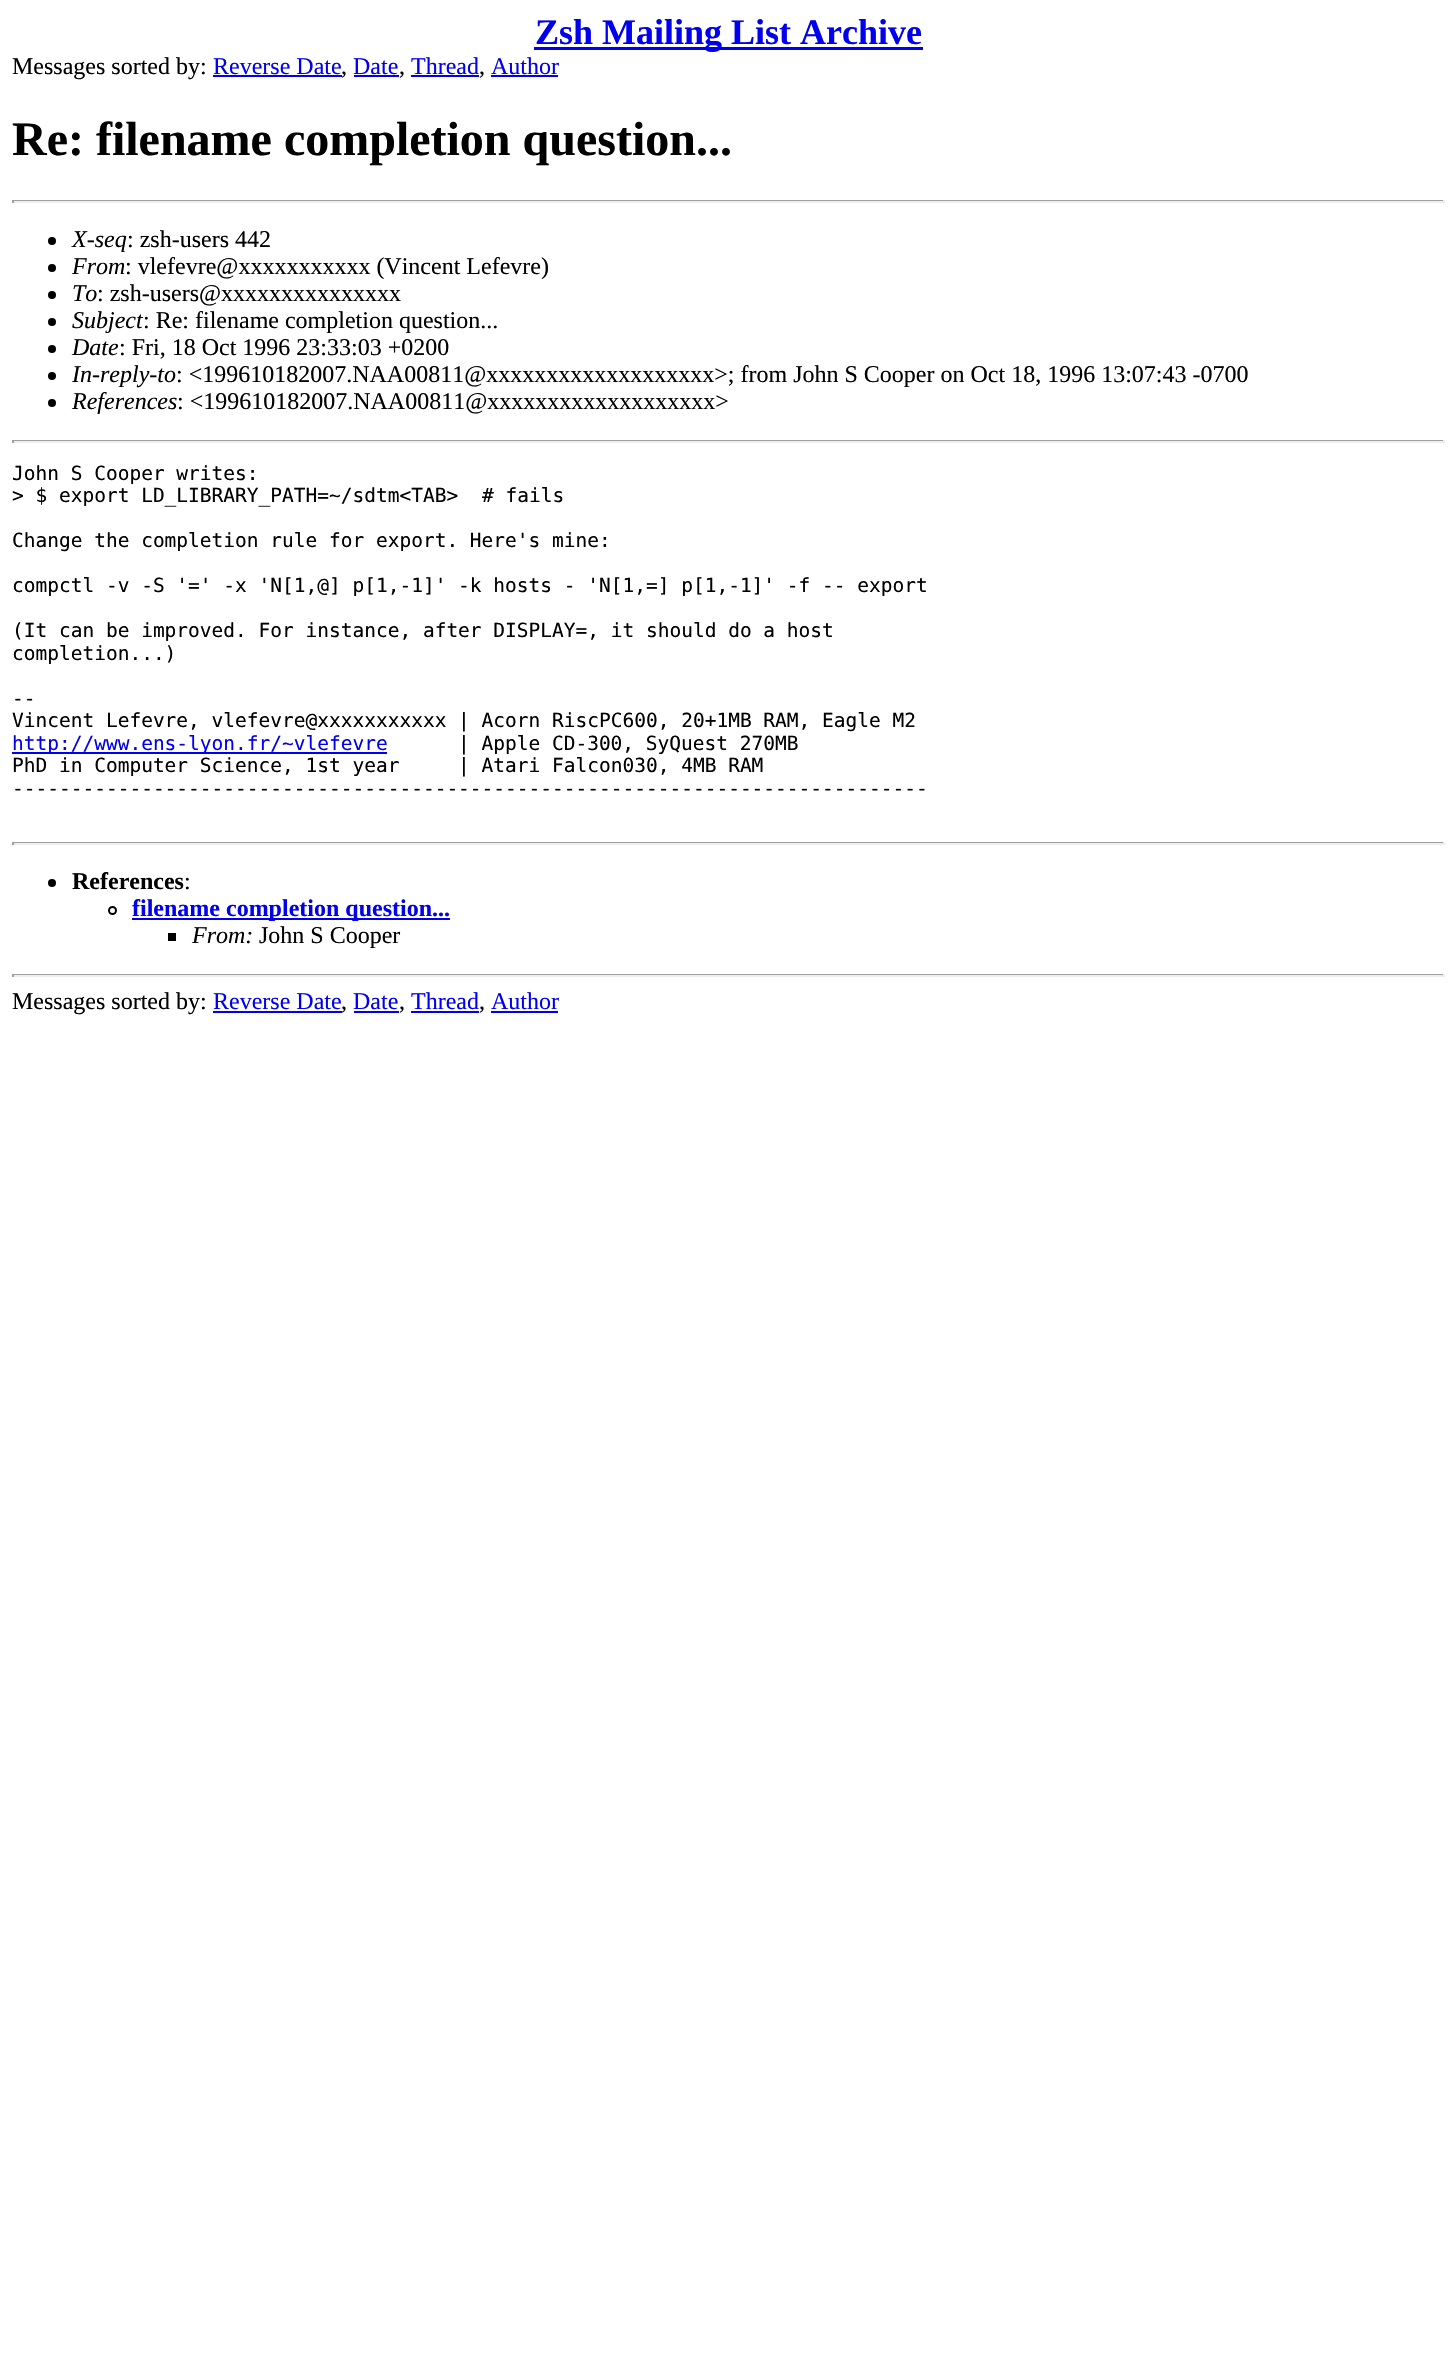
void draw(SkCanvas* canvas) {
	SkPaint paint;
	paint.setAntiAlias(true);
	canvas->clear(0xffffffff);
	paint.setColor(0xff0000ee);
	canvas->drawRect(SkRect::MakeXYWH(534, 47, 389, 3), paint);
	SkFont f1(fontMgr->matchFamilyStyle("Liberation Serif", SkFontStyle::Bold()), 36);
	f1.setSubpixel(true);
	canvas->drawString("Zsh Mailing List Archive", 535, 44, f1, paint);
	SkFont f2(fontMgr->matchFamilyStyle("Liberation Serif", SkFontStyle::Normal()), 24);
	f2.setSubpixel(true);
	paint.setColor(0xff000000);
	canvas->drawString("Messages sorted by:", 12, 74, f2, paint);
	paint.setColor(0xff0000ee);
	canvas->drawString("Reverse Date", 213, 74, f2, paint);
	canvas->drawRect(SkRect::MakeXYWH(213, 75, 129, 2), paint);
	paint.setColor(0xff000000);
	canvas->drawString(",", 341, 74, f2, paint);
	paint.setColor(0xff0000ee);
	canvas->drawString("Date", 353, 74, f2, paint);
	canvas->drawRect(SkRect::MakeXYWH(354, 75, 45, 2), paint);
	paint.setColor(0xff000000);
	canvas->drawString(",", 399, 74, f2, paint);
	paint.setColor(0xff0000ee);
	canvas->drawString("Thread", 411, 74, f2, paint);
	canvas->drawRect(SkRect::MakeXYWH(411, 75, 68, 2), paint);
	paint.setColor(0xff000000);
	canvas->drawString(",", 479, 74, f2, paint);
	paint.setColor(0xff0000ee);
	canvas->drawString("Author", 491, 74, f2, paint);
	canvas->drawRect(SkRect::MakeXYWH(491, 75, 67, 2), paint);
	SkFont f3(fontMgr->matchFamilyStyle("Liberation Serif", SkFontStyle::Bold()), 48);
	f3.setSubpixel(true);
	paint.setColor(0xff000000);
	canvas->drawString("Re: filename completion question...", 12, 155, f3, paint);
	paint.setColor(0xff9f9f9f);
	canvas->drawRect(SkRect::MakeXYWH(12, 200, 1433, 1), paint);
	paint.setColor(0xffeeeeee);
	canvas->drawRect(SkRect::MakeXYWH(1443, 200, 2, 3), paint);
	canvas->drawRect(SkRect::MakeXYWH(12, 201, 1433, 2), paint);
	paint.setColor(0xff9f9f9f);
	canvas->drawRect(SkRect::MakeXYWH(12, 200, 2, 3), paint);
	paint.setColor(0xff000000);
	canvas->drawCircle(52, 241, 4, paint);
	SkFont f4(fontMgr->matchFamilyStyle("Liberation Serif", SkFontStyle::Italic()), 24);
	f4.setSubpixel(true);
	canvas->drawString("X-seq", 72, 247, f4, paint);
	canvas->drawString(": zsh-users 442", 127, 247, f2, paint);
	canvas->drawCircle(52, 268, 4, paint);
	canvas->drawString("From", 72, 274, f4, paint);
	canvas->drawString(": vlefevre@xxxxxxxxxxx (Vincent Lefevre)", 125, 274, f2, paint);
	canvas->drawCircle(52, 295, 4, paint);
	canvas->drawString("To", 72, 301, f4, paint);
	canvas->drawString(": zsh-users@xxxxxxxxxxxxxxx", 97, 301, f2, paint);
	canvas->drawCircle(52, 322, 4, paint);
	canvas->drawString("Subject", 72, 328, f4, paint);
	canvas->drawString(": Re: filename completion question...", 143, 328, f2, paint);
	canvas->drawCircle(52, 349, 4, paint);
	canvas->drawString("Date", 72, 355, f4, paint);
	canvas->drawString(": Fri, 18 Oct 1996 23:33:03 +0200", 119, 355, f2, paint);
	canvas->drawCircle(52, 376, 4, paint);
	canvas->drawString("In-reply-to", 72, 382, f4, paint);
	canvas->drawString(": <199610182007.NAA00811@xxxxxxxxxxxxxxxxxxx>; from John S Cooper on Oct 18, 1996 13:07:43 -0700", 176, 382, f2, paint);
	canvas->drawCircle(52, 403, 4, paint);
	canvas->drawString("References", 72, 409, f4, paint);
	canvas->drawString(": <199610182007.NAA00811@xxxxxxxxxxxxxxxxxxx>", 177, 409, f2, paint);
	paint.setColor(0xff9f9f9f);
	canvas->drawRect(SkRect::MakeXYWH(12, 440, 1433, 1), paint);
	paint.setColor(0xffeeeeee);
	canvas->drawRect(SkRect::MakeXYWH(1443, 440, 2, 3), paint);
	canvas->drawRect(SkRect::MakeXYWH(12, 441, 1433, 2), paint);
	paint.setColor(0xff9f9f9f);
	canvas->drawRect(SkRect::MakeXYWH(12, 440, 2, 3), paint);
	SkFont f5(fontMgr->matchFamilyStyle("DejaVu Sans Mono", SkFontStyle::Normal()), 19.5);
	f5.setSubpixel(true);
	paint.setColor(0xff000000);
	canvas->drawString("John S Cooper writes:", 12, 480, f5, paint);
	canvas->drawString("> $ export LD_LIBRARY_PATH=~/sdtm<TAB>", 12, 502, f5, paint);
	canvas->drawString("# fails", 482, 502, f5, paint);
	canvas->drawString("Change the completion rule for export. Here's mine:", 12, 547, f5, paint);
	canvas->drawString("compctl -v -S '=' -x 'N[1,@] p[1,-1]' -k hosts - 'N[1,=] p[1,-1]' -f -- export", 12, 592, f5, paint);
	canvas->drawString("(It can be improved. For instance, after DISPLAY=, it should do a host", 12, 637, f5, paint);
	canvas->drawString("completion...)", 12, 660, f5, paint);
	canvas->drawString("--", 12, 705, f5, paint);
	canvas->drawString("Vincent Lefevre, vlefevre@xxxxxxxxxxx | Acorn RiscPC600, 20+1MB RAM, Eagle M2", 12, 727, f5, paint);
	paint.setColor(0xff0000ee);
	canvas->drawRect(SkRect::MakeXYWH(12, 752, 375, 2), paint);
	canvas->drawString("http://www.ens-lyon.fr/~vlefevre", 12, 750, f5, paint);
	paint.setColor(0xff000000);
	canvas->drawString("| Apple CD-300, SyQuest 270MB", 458, 750, f5, paint);
	canvas->drawString("PhD in Computer Science, 1st year     | Atari Falcon030, 4MB RAM", 12, 772, f5, paint);
	canvas->drawString("------------------------------------------------------------------------------", 12, 795, f5, paint);
	paint.setColor(0xff9f9f9f);
	canvas->drawRect(SkRect::MakeXYWH(12, 842, 1433, 1), paint);
	paint.setColor(0xffeeeeee);
	canvas->drawRect(SkRect::MakeXYWH(1443, 842, 2, 3), paint);
	canvas->drawRect(SkRect::MakeXYWH(12, 843, 1433, 2), paint);
	paint.setColor(0xff9f9f9f);
	canvas->drawRect(SkRect::MakeXYWH(12, 842, 2, 3), paint);
	paint.setColor(0xff000000);
	canvas->drawCircle(52, 883, 4, paint);
	SkFont f6(fontMgr->matchFamilyStyle("Liberation Serif", SkFontStyle::Bold()), 24);
	f6.setSubpixel(true);
	canvas->drawString("References", 72, 889, f6, paint);
	canvas->drawString(":", 184, 889, f2, paint);
	paint.setStroke(true);
	paint.setStrokeWidth(2);
	canvas->drawCircle(112.5, 910.5, 3.5, paint);
	paint.setStroke(false);
	paint.setColor(0xff0000ee);
	canvas->drawRect(SkRect::MakeXYWH(132, 918, 318, 2), paint);
	canvas->drawString("filename completion question...", 132, 916, f6, paint);
	paint.setColor(0xff000000);
	canvas->drawRect(SkRect::MakeXYWH(168, 933, 8, 8), paint);
	canvas->drawString("From:", 192, 943, f4, paint);
	canvas->drawString("John S Cooper", 259, 943, f2, paint);
	paint.setColor(0xff9f9f9f);
	canvas->drawRect(SkRect::MakeXYWH(12, 974, 1433, 1), paint);
	paint.setColor(0xffeeeeee);
	canvas->drawRect(SkRect::MakeXYWH(1443, 974, 2, 3), paint);
	canvas->drawRect(SkRect::MakeXYWH(12, 975, 1433, 2), paint);
	paint.setColor(0xff9f9f9f);
	canvas->drawRect(SkRect::MakeXYWH(12, 974, 2, 3), paint);
	paint.setColor(0xff000000);
	canvas->drawString("Messages sorted by:", 12, 1009, f2, paint);
	paint.setColor(0xff0000ee);
	canvas->drawString("Reverse Date", 213, 1009, f2, paint);
	canvas->drawRect(SkRect::MakeXYWH(213, 1011, 129, 2), paint);
	paint.setColor(0xff000000);
	canvas->drawString(",", 341, 1009, f2, paint);
	paint.setColor(0xff0000ee);
	canvas->drawString("Date", 353, 1009, f2, paint);
	canvas->drawRect(SkRect::MakeXYWH(354, 1011, 45, 2), paint);
	paint.setColor(0xff000000);
	canvas->drawString(",", 399, 1009, f2, paint);
	paint.setColor(0xff0000ee);
	canvas->drawString("Thread", 411, 1009, f2, paint);
	canvas->drawRect(SkRect::MakeXYWH(411, 1011, 68, 2), paint);
	paint.setColor(0xff000000);
	canvas->drawString(",", 479, 1009, f2, paint);
	paint.setColor(0xff0000ee);
	canvas->drawString("Author", 491, 1009, f2, paint);
	canvas->drawRect(SkRect::MakeXYWH(491, 1011, 67, 2), paint);
}
